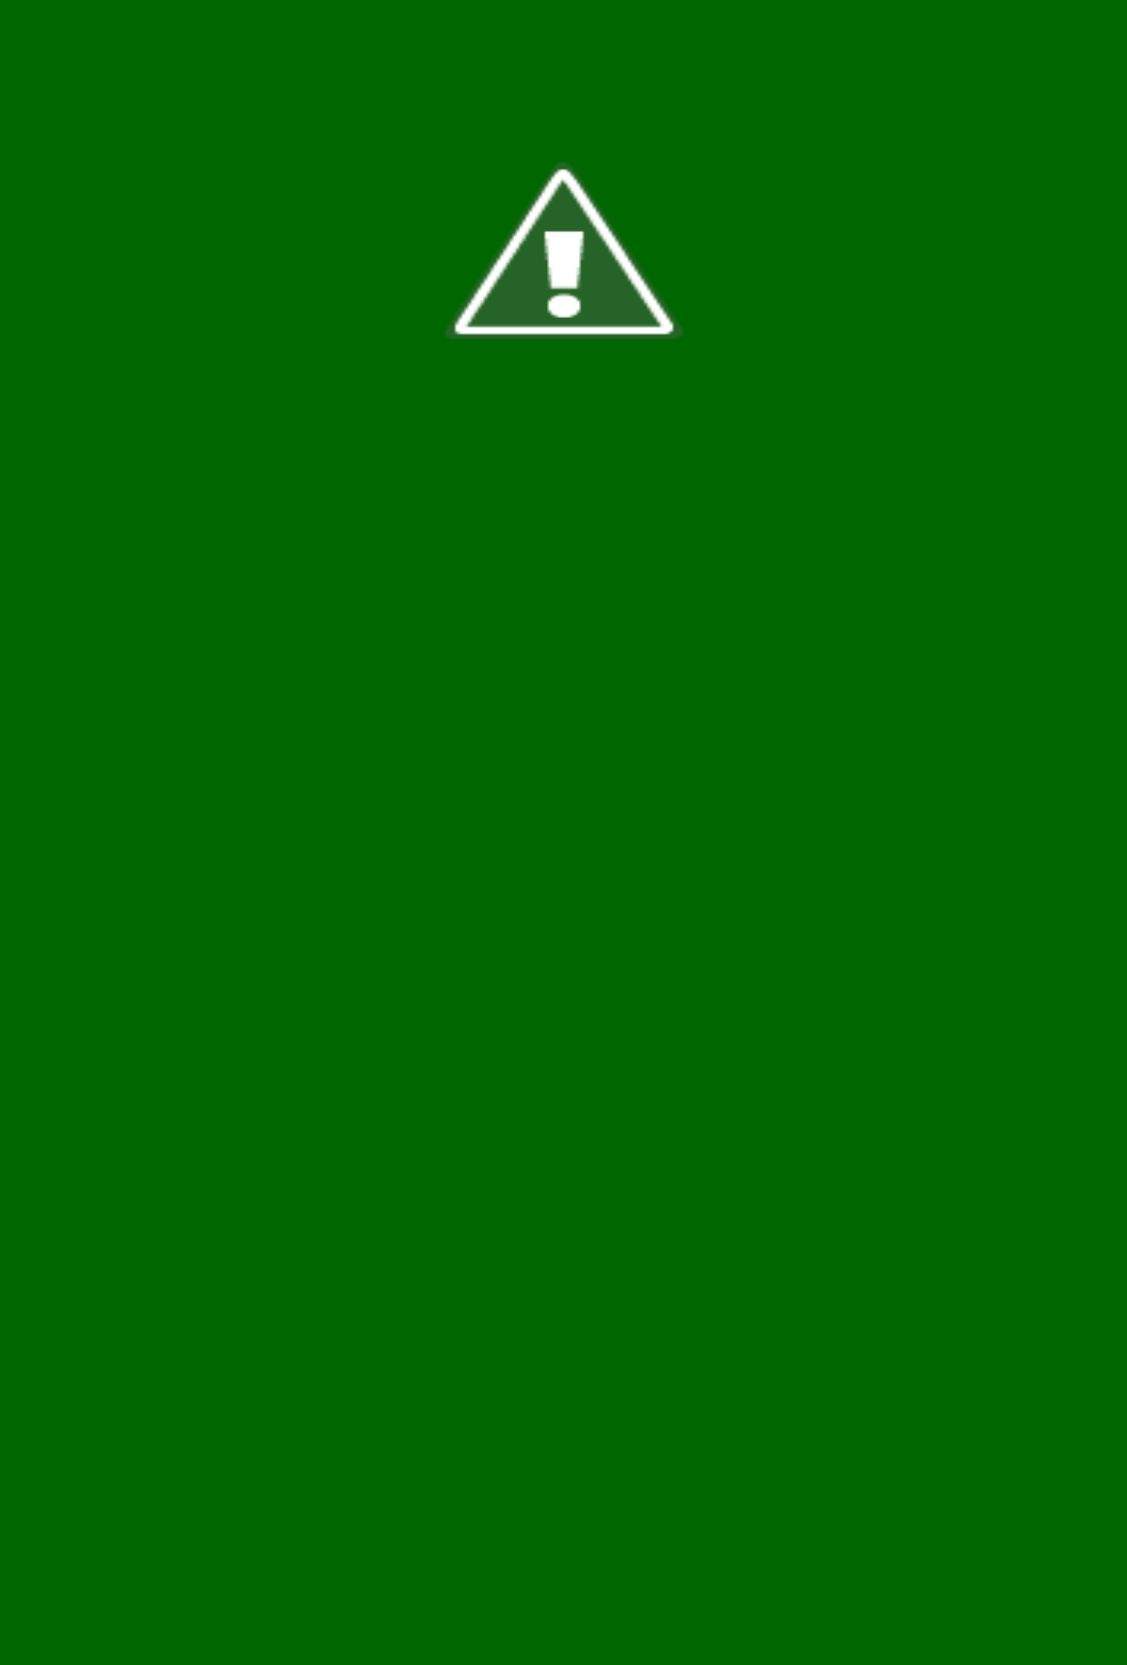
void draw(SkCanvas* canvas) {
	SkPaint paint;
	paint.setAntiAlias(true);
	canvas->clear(0xff006600);
	canvas->drawImageRect(SkImages::DeferredFromEncodedData(SkData::MakeFromFileName("img1.png")), SkRect::MakeXYWH(444, 161, 240, 179), SkSamplingOptions());
}
